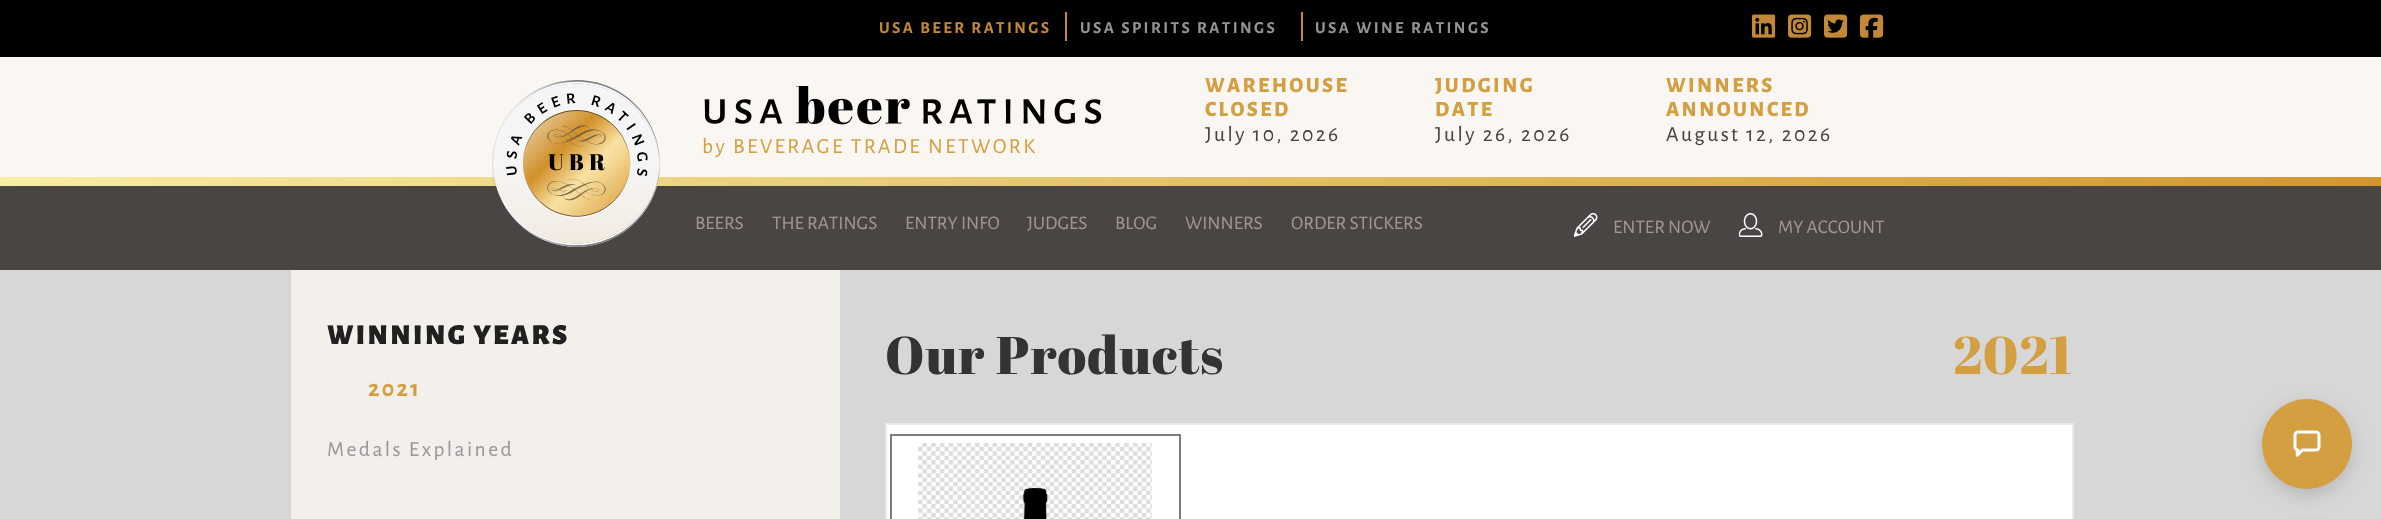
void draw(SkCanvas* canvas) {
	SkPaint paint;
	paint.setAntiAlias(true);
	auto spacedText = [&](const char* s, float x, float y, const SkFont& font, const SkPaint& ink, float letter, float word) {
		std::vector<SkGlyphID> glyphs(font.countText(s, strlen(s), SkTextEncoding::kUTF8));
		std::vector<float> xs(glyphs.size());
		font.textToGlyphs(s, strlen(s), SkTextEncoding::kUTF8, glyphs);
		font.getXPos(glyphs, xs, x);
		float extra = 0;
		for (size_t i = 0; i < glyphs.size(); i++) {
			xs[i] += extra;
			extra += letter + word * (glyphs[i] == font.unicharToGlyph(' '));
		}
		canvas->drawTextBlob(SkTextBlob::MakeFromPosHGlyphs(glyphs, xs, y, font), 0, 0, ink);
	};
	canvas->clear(0xfffaf7f3);
	paint.setColor(0xff000000);
	canvas->drawRect(SkRect::MakeXYWH(0, 0, 2381, 57), paint);
	paint.setColor(0xffc28838);
	canvas->drawRect(SkRect::MakeXYWH(1065, 12, 2, 29), paint);
	SkFont f1(fontMgr->matchFamilyStyle("Alegreya Sans", SkFontStyle::Bold()), 16.75);
	f1.setSubpixel(true);
	spacedText("USA BEER RATINGS", 879, 33, f1, paint, 2.4, 0);
	canvas->drawRect(SkRect::MakeXYWH(1301, 12, 2, 29), paint);
	paint.setColor(0xff979297);
	spacedText("USA SPIRITS RATINGS", 1080, 33, f1, paint, 2.4, 0);
	spacedText("USA WINE RATINGS", 1315, 33, f1, paint, 2.4, 0);
	canvas->drawImageRect(SkImages::DeferredFromEncodedData(SkData::MakeFromFileName("img1.png")), SkRect::MakeXYWH(1752, 14, 24, 24), SkSamplingOptions());
	canvas->drawImageRect(SkImages::DeferredFromEncodedData(SkData::MakeFromFileName("img2.png")), SkRect::MakeXYWH(1788, 14, 24, 24), SkSamplingOptions());
	canvas->drawImageRect(SkImages::DeferredFromEncodedData(SkData::MakeFromFileName("img3.png")), SkRect::MakeXYWH(1824, 14, 24, 24), SkSamplingOptions());
	canvas->drawImageRect(SkImages::DeferredFromEncodedData(SkData::MakeFromFileName("img4.png")), SkRect::MakeXYWH(1860, 14, 24, 24), SkSamplingOptions());
	{
		const SkColor colors[] = {0xfff7eda4, 0xffd09632};
		const float stops[] = {0, 1};
		const SkPoint ends[] = {{0, 182}, {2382, 181}};
		paint.setShader(SkGradientShader::MakeLinear(ends, colors, stops, 2, SkTileMode::kClamp));
		paint.setAlpha(255);
	}
	canvas->drawRect(SkRect::MakeXYWH(0, 177, 2381, 9), paint);
	paint.setShader(nullptr);
	paint.setColor(0xff4a4442);
	canvas->drawRect(SkRect::MakeXYWH(0, 186, 2381, 84), paint);
	canvas->drawImageRect(SkImages::DeferredFromEncodedData(SkData::MakeFromFileName("img5.png")), SkRect::MakeXYWH(492, 80, 168, 167), SkSamplingOptions());
	canvas->drawImageRect(SkImages::DeferredFromEncodedData(SkData::MakeFromFileName("img6.png")), SkRect::MakeXYWH(704, 86, 398, 39), SkSamplingOptions());
	SkFont f2(fontMgr->matchFamilyStyle("Alegreya Sans", SkFontStyle::Normal()), 21.6);
	f2.setSubpixel(true);
	paint.setColor(0xffd49f41);
	spacedText("by BEVERAGE TRADE NETWORK", 702, 153, f2, paint, 2.4, 0);
	SkFont f3(fontMgr->matchFamilyStyle("Alegreya Sans", SkFontStyle(800, SkFontStyle::kNormal_Width, SkFontStyle::kUpright_Slant)), 21.6);
	f3.setSubpixel(true);
	spacedText("WAREHOUSE", 1205, 92, f3, paint, 2.4, 0);
	spacedText("CLOSED", 1205, 116, f3, paint, 2.4, 0);
	paint.setColor(0xff4a4442);
	spacedText("July 10, 2026", 1205, 141, f2, paint, 2.4, 0);
	paint.setColor(0xffd49f41);
	spacedText("JUDGING", 1435, 92, f3, paint, 2.4, 0);
	spacedText("DATE", 1435, 116, f3, paint, 2.4, 0);
	paint.setColor(0xff4a4442);
	spacedText("July 26, 2026", 1435, 141, f2, paint, 2.4, 0);
	paint.setColor(0xffd49f41);
	spacedText("WINNERS", 1666, 92, f3, paint, 2.4, 0);
	spacedText("ANNOUNCED", 1666, 116, f3, paint, 2.4, 0);
	paint.setColor(0xff4a4442);
	spacedText("August 12, 2026", 1666, 141, f2, paint, 2.4, 0);
	SkFont f4(fontMgr->matchFamilyStyle("Alegreya Sans", SkFontStyle::Normal()), 19.25);
	f4.setSubpixel(true);
	paint.setColor(0xffa19592);
	canvas->drawString("BEERS", 695, 229, f4, paint);
	canvas->drawString("THE RATINGS", 772, 229, f4, paint);
	canvas->drawString("ENTRY INFO", 905, 229, f4, paint);
	canvas->drawString("JUDGES", 1027, 229, f4, paint);
	canvas->drawString("BLOG", 1115, 229, f4, paint);
	canvas->drawString("WINNERS", 1185, 229, f4, paint);
	canvas->drawString("ORDER STICKERS", 1291, 229, f4, paint);
	canvas->drawImageRect(SkImages::DeferredFromEncodedData(SkData::MakeFromFileName("img7.png")), SkRect::MakeXYWH(1574, 213, 24, 24), SkSamplingOptions());
	canvas->drawString("ENTER NOW", 1613, 233, f4, paint);
	canvas->drawImageRect(SkImages::DeferredFromEncodedData(SkData::MakeFromFileName("img8.png")), SkRect::MakeXYWH(1739, 213, 24, 24), SkSamplingOptions());
	canvas->drawString("MY ACCOUNT", 1778, 233, f4, paint);
	paint.setColor(0xffd7d7d7);
	canvas->drawRect(SkRect::MakeXYWH(0, 270, 2381, 249), paint);
	paint.setColor(0xfff3efeb);
	canvas->drawRect(SkRect::MakeXYWH(291, 270, 549, 249), paint);
	SkFont f5(fontMgr->matchFamilyStyle("Alegreya Sans", SkFontStyle(900, SkFontStyle::kNormal_Width, SkFontStyle::kUpright_Slant)), 28.75);
	f5.setSubpixel(true);
	paint.setColor(0xff202020);
	spacedText("WINNING YEARS", 327, 344, f5, paint, 2.4, 0);
	SkFont f6(fontMgr->matchFamilyStyle("Alegreya Sans", SkFontStyle::Bold()), 24);
	f6.setSubpixel(true);
	paint.setColor(0xffd49f41);
	spacedText("2021", 368, 396, f6, paint, 2.4, 0);
	paint.setColor(0xff9a9a9b);
	spacedText("Medals Explained", 327, 456, f2, paint, 2.4, 0);
	SkFont f7(fontMgr->matchFamilyStyle("Abril Fatface", SkFontStyle::Normal()), 52.75);
	f7.setSubpixel(true);
	paint.setColor(0xff333333);
	spacedText("Our Products", 885, 374, f7, paint, 1, 0);
	paint.setColor(0xffd49f41);
	spacedText("2021", 1953, 374, f7, paint, 1, 0);
	paint.setColor(0xffffffff);
	canvas->drawRect(SkRect::MakeXYWH(887, 425, 1185, 94), paint);
	paint.setColor(0xffeaeaea);
	canvas->drawRect(SkRect::MakeXYWH(885, 423, 1188, 2), paint);
	canvas->drawRect(SkRect::MakeXYWH(2072, 423, 2, 96), paint);
	canvas->drawRect(SkRect::MakeXYWH(885, 423, 2, 96), paint);
	paint.setStroke(true);
	paint.setStrokeWidth(2);
	paint.setColor(0xff807c7b);
	canvas->drawRect(SkRect::MakeXYWH(891, 435, 289, 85), paint);
	canvas->drawImageRect(SkImages::DeferredFromEncodedData(SkData::MakeFromFileName("img9.png")), SkRect::MakeXYWH(918, 443, 234, 76), SkSamplingOptions());
	paint.setStroke(false);
	paint.setColor(0x26000000);
	paint.setMaskFilter(SkMaskFilter::MakeBlur(kNormal_SkBlurStyle, 9));
	canvas->drawRoundRect(SkRect::MakeXYWH(2262, 405, 90, 90), 45, 45, paint);
	paint.setMaskFilter(nullptr);
	paint.setColor(0xffd49f41);
	canvas->drawCircle(2307, 444, 45, paint);
	canvas->drawImageRect(SkImages::DeferredFromEncodedData(SkData::MakeFromFileName("img10.png")), SkRect::MakeXYWH(2293, 430, 28, 27), SkSamplingOptions());
}
